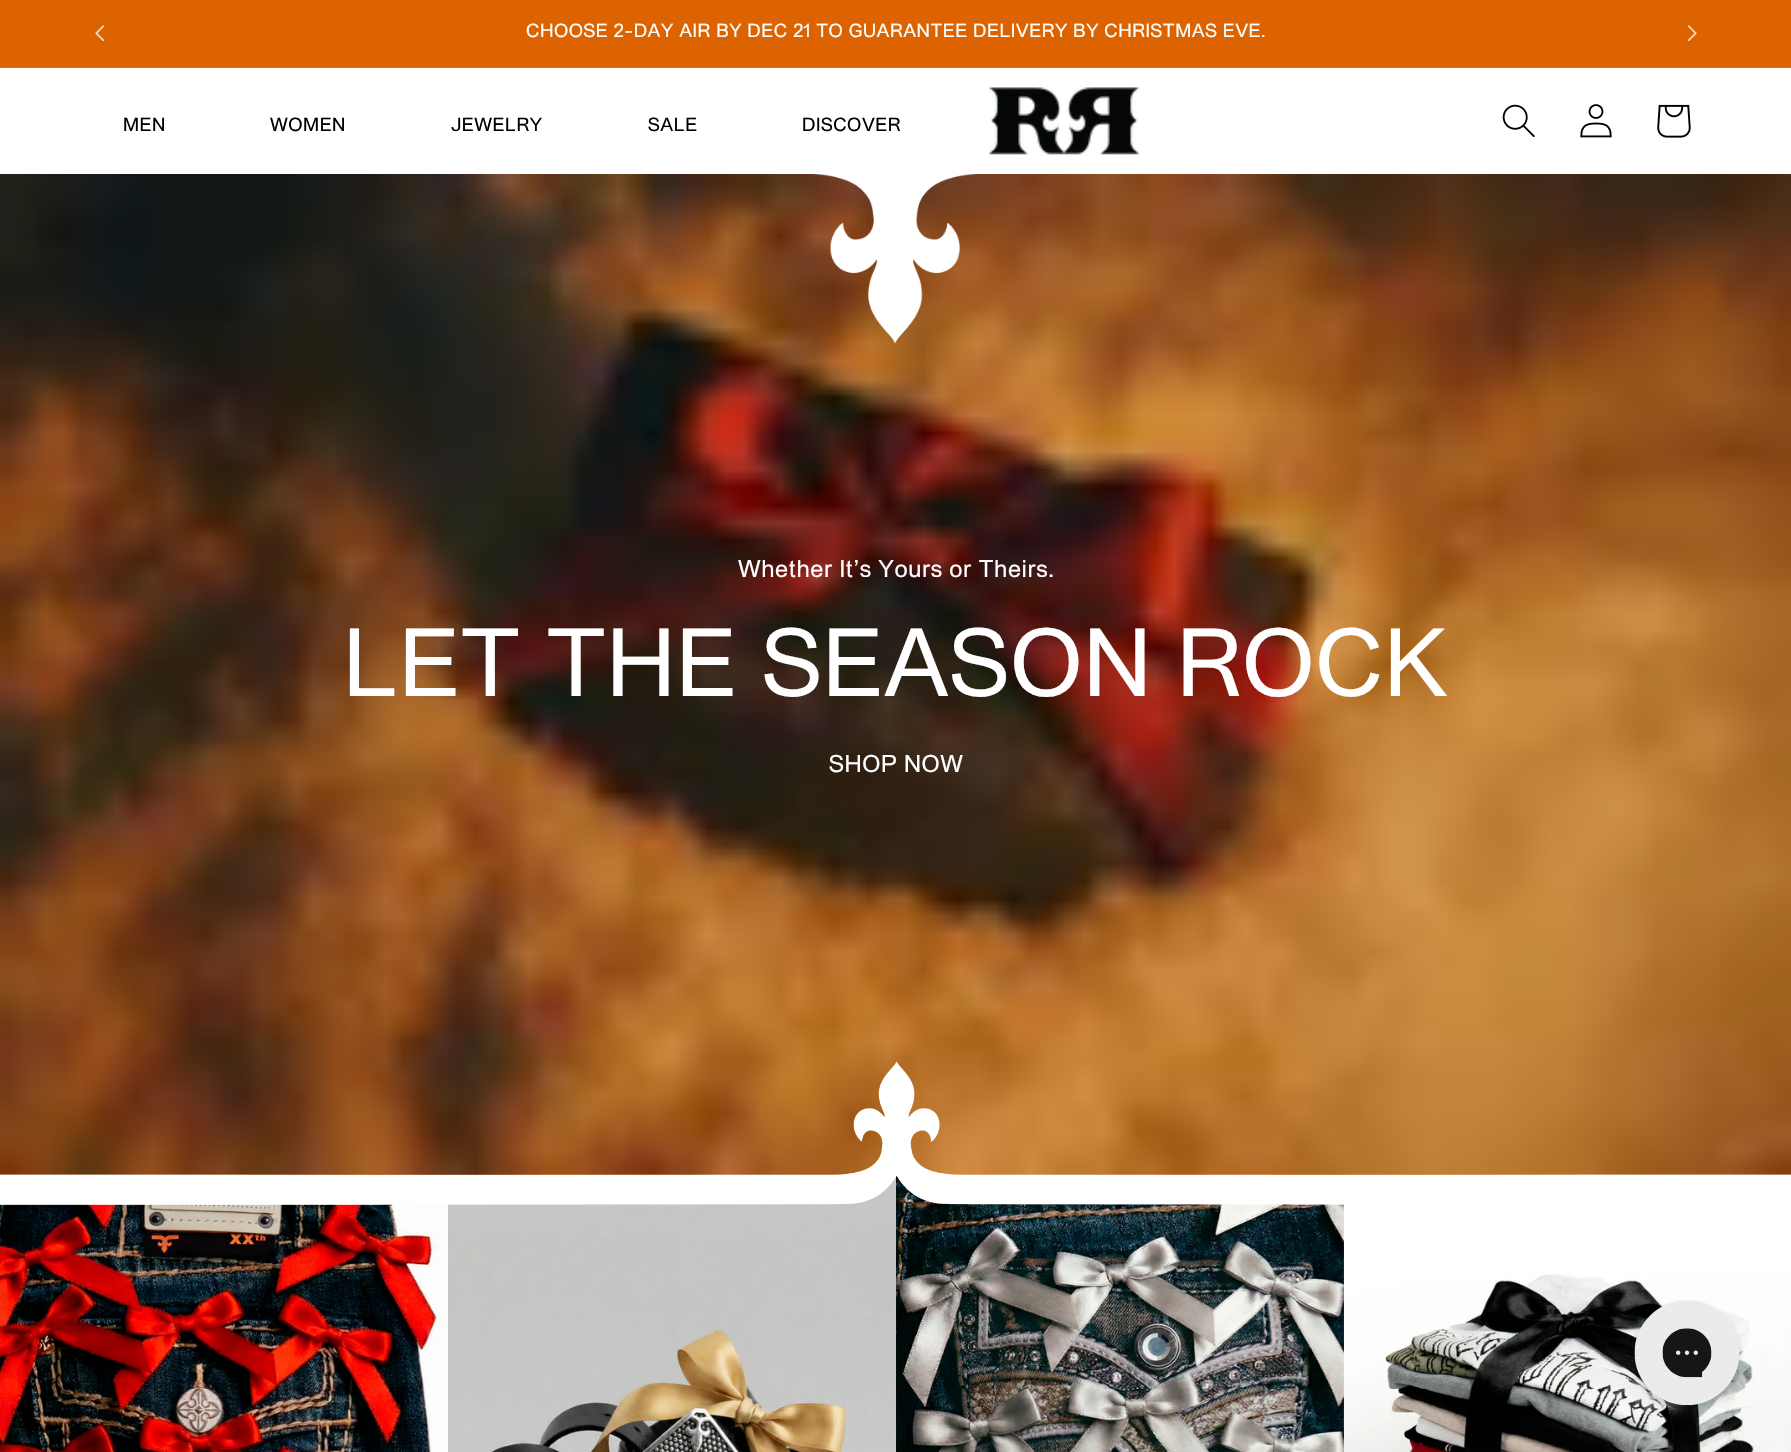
void draw(SkCanvas* canvas) {
	SkPaint paint;
	paint.setAntiAlias(true);
	auto spacedText = [&](const char* s, float x, float y, const SkFont& font, const SkPaint& ink, float letter, float word) {
		std::vector<SkGlyphID> glyphs(font.countText(s, strlen(s), SkTextEncoding::kUTF8));
		std::vector<float> xs(glyphs.size());
		font.textToGlyphs(s, strlen(s), SkTextEncoding::kUTF8, glyphs);
		font.getXPos(glyphs, xs, x);
		float extra = 0;
		for (size_t i = 0; i < glyphs.size(); i++) {
			xs[i] += extra;
			extra += letter + word * (glyphs[i] == font.unicharToGlyph(' '));
		}
		canvas->drawTextBlob(SkTextBlob::MakeFromPosHGlyphs(glyphs, xs, y, font), 0, 0, ink);
	};
	canvas->clear(0xffffffff);
	paint.setColor(0xffdd6300);
	canvas->drawRect(SkRect::MakeXYWH(0, 0, 1791, 67), paint);
	paint.setColor(0xffe06f14);
	canvas->drawRect(SkRect::MakeXYWH(0, 67, 1791, 1), paint);
	canvas->drawImageRect(SkImages::DeferredFromEncodedData(SkData::MakeFromFileName("img1.png")), SkRect::MakeXYWH(95, 25, 10, 17), SkSamplingOptions());
	SkFont f1(fontMgr->matchFamilyStyle("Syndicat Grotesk", SkFontStyle::Normal()), 19.25);
	f1.setSubpixel(true);
	paint.setColor(0xffffffff);
	spacedText("CHOOSE 2-DAY AIR BY DEC 21 TO GUARANTEE DELIVERY BY CHRISTMAS EVE.", 526, 37, f1, paint, 0.53, 0);
	canvas->drawImageRect(SkImages::DeferredFromEncodedData(SkData::MakeFromFileName("img2.png")), SkRect::MakeXYWH(1687, 25, 10, 17), SkSamplingOptions());
	paint.setColor(0xff000000);
	spacedText("MEN", 123, 131, f1, paint, 0.53, 0);
	spacedText("WOMEN", 270, 131, f1, paint, 0.53, 0);
	spacedText("JEWELRY", 451, 131, f1, paint, 0.53, 0);
	spacedText("SALE", 648, 131, f1, paint, 0.53, 0);
	spacedText("DISCOVER", 802, 131, f1, paint, 0.53, 0);
	canvas->drawImageRect(SkImages::DeferredFromEncodedData(SkData::MakeFromFileName("img3.png")), SkRect::MakeXYWH(988, 86, 152, 69), SkSamplingOptions());
	canvas->drawImageRect(SkImages::DeferredFromEncodedData(SkData::MakeFromFileName("img4.png")), SkRect::MakeXYWH(1502, 104, 33, 34), SkSamplingOptions());
	canvas->drawImageRect(SkImages::DeferredFromEncodedData(SkData::MakeFromFileName("img5.png")), SkRect::MakeXYWH(1580, 104, 32, 34), SkSamplingOptions());
	canvas->drawImageRect(SkImages::DeferredFromEncodedData(SkData::MakeFromFileName("img6.png")), SkRect::MakeXYWH(1657, 104, 34, 34), SkSamplingOptions());
	canvas->drawImageRect(SkImages::DeferredFromEncodedData(SkData::MakeFromFileName("img8.png")), SkRect::MakeXYWH(0, 174, 1791, 1001), SkSamplingOptions());
	canvas->drawImageRect(SkImages::DeferredFromEncodedData(SkData::MakeFromFileName("img7.png")), SkRect::MakeXYWH(812, 174, 166, 170), SkSamplingOptions());
	SkFont f2(fontMgr->matchFamilyStyle("Syndicat Grotesk", SkFontStyle::Normal()), 24.5);
	f2.setSubpixel(true);
	paint.setColor(0xffffffff);
	spacedText("Whether It’s Yours or Theirs.", 738, 577, f2, paint, 0.53, 0);
	SkFont f3(fontMgr->matchFamilyStyle("Syndicat Grotesk", SkFontStyle::Normal()), 98);
	f3.setSubpixel(true);
	spacedText("LET THE SEASON ROCK", 343, 696, f3, paint, 0.53, 0);
	spacedText("SHOP NOW", 829, 772, f2, paint, 0.53, 0);
	canvas->drawImageRect(SkImages::DeferredFromEncodedData(SkData::MakeFromFileName("img10.png")), SkRect::MakeXYWH(0, 1204, 448, 248), SkSamplingOptions());
	canvas->drawImageRect(SkImages::DeferredFromEncodedData(SkData::MakeFromFileName("img11.png")), SkRect::MakeXYWH(448, 1177, 448, 275), SkSamplingOptions());
	canvas->drawImageRect(SkImages::DeferredFromEncodedData(SkData::MakeFromFileName("img12.png")), SkRect::MakeXYWH(896, 1176, 448, 276), SkSamplingOptions());
	canvas->drawImageRect(SkImages::DeferredFromEncodedData(SkData::MakeFromFileName("img9.png")), SkRect::MakeXYWH(0, 1061, 1791, 144), SkSamplingOptions());
	canvas->drawImageRect(SkImages::DeferredFromEncodedData(SkData::MakeFromFileName("img13.png")), SkRect::MakeXYWH(1344, 1274, 447, 178), SkSamplingOptions());
	canvas->drawImageRect(SkImages::DeferredFromEncodedData(SkData::MakeFromFileName("img14.png")), SkRect::MakeXYWH(1634, 1300, 109, 111), SkSamplingOptions());
}
